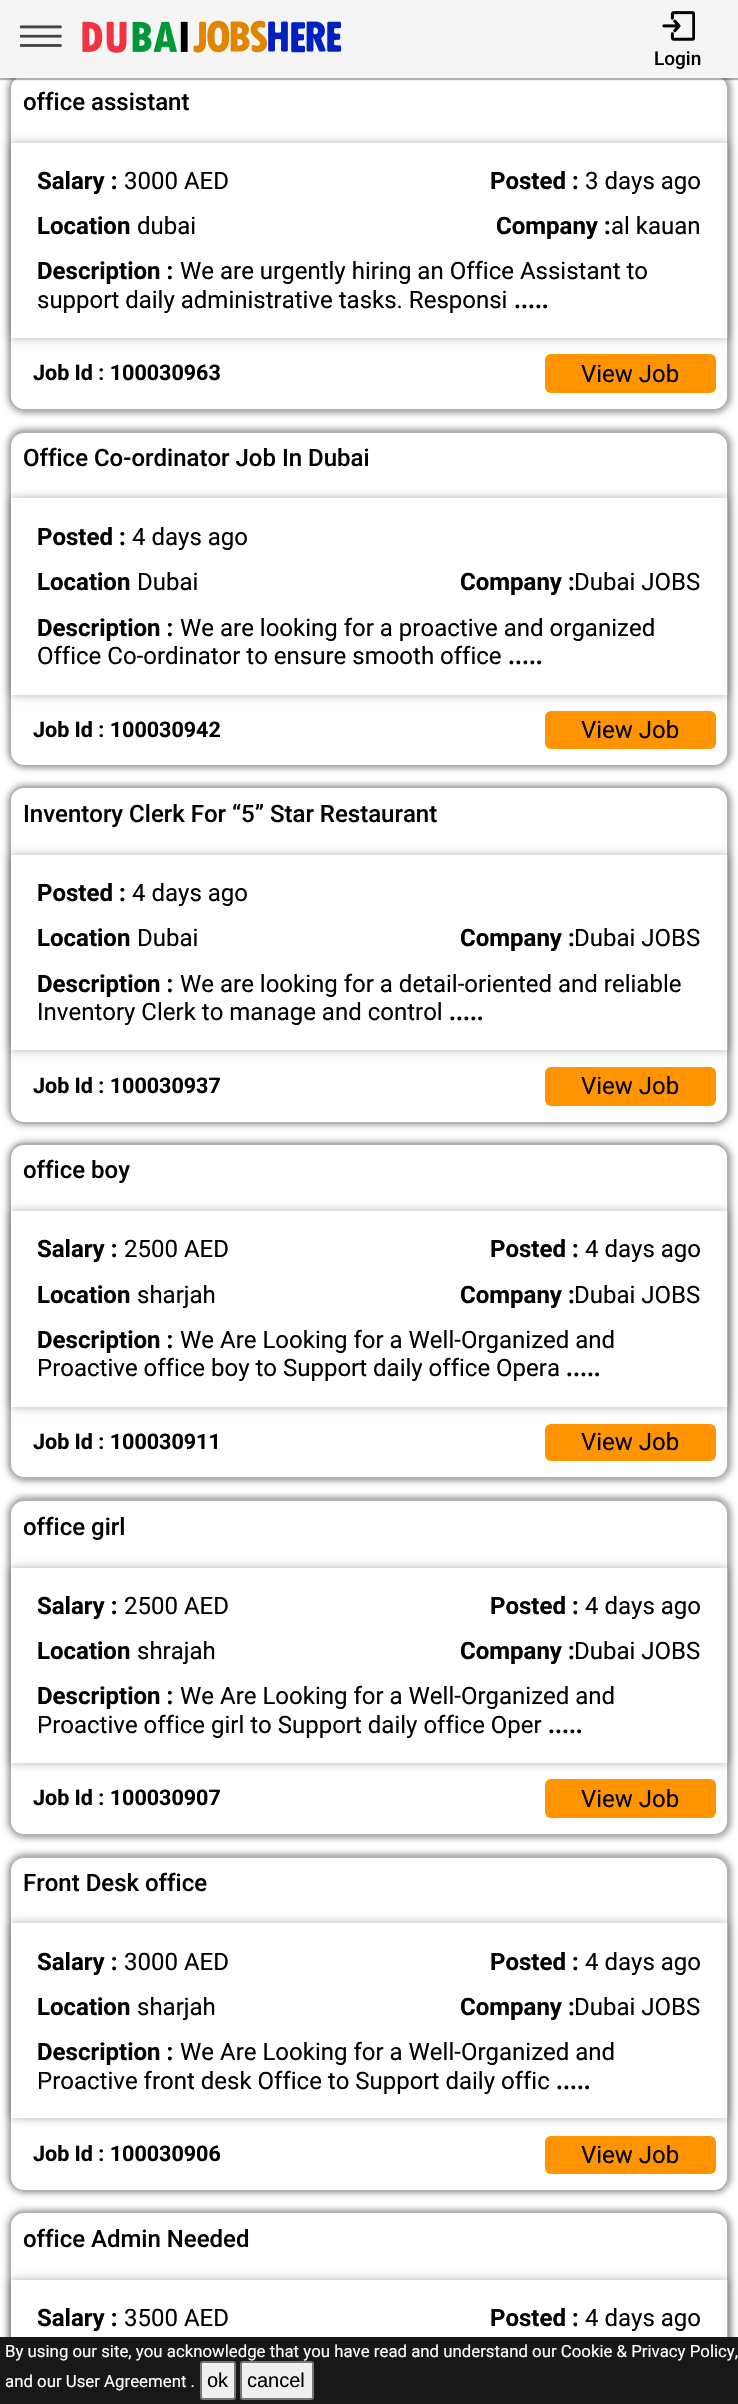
void draw(SkCanvas* canvas) {
	SkPaint paint;
	paint.setAntiAlias(true);
	auto svgPath = [&](const char* data, bool evenOdd = false) {
		SkPath result = *SkParsePath::FromSVGString(data);
		if (evenOdd) result.setFillType(SkPathFillType::kEvenOdd);
		return result;
	};
	canvas->clear(0xffffffff);
	canvas->save();
	canvas->clipPath(svgPath("M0 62H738V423H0ZM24 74H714C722.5 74 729 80.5 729 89V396C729 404.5 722.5 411 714 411H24C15.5 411 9 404.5 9 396V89C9 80.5 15.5 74 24 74Z", true), true);
	paint.setColor(0x66000000);
	paint.setMaskFilter(SkMaskFilter::MakeBlur(kNormal_SkBlurStyle, 3));
	canvas->drawRoundRect(SkRect::MakeXYWH(8, 72, 723, 341), 17, 17, paint);
	paint.setMaskFilter(nullptr);
	canvas->restore();
	paint.setStroke(true);
	paint.setStrokeWidth(2);
	paint.setColor(0x4d000000);
	canvas->drawRoundRect(SkRect::MakeXYWH(10, 75, 718, 335), 14, 14, paint);
	paint.setStroke(false);
	paint.setMaskFilter(SkMaskFilter::MakeBlur(kNormal_SkBlurStyle, 0.5));
	canvas->drawRect(SkRect::MakeXYWH(0, 0, 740, 80), paint);
	paint.setMaskFilter(nullptr);
	paint.setColor(0xfff5f5f5);
	canvas->drawRect(SkRect::MakeXYWH(0, 0, 738, 78), paint);
	canvas->drawImageRect(SkImages::DeferredFromEncodedData(SkData::MakeFromFileName("img1.png")), SkRect::MakeXYWH(19, 25, 43, 22), SkSamplingOptions());
	canvas->drawImageRect(SkImages::DeferredFromEncodedData(SkData::MakeFromFileName("img2.png")), SkRect::MakeXYWH(82, 20, 260, 33), SkSamplingOptions());
	canvas->drawImageRect(SkImages::DeferredFromEncodedData(SkData::MakeFromFileName("img3.png")), SkRect::MakeXYWH(662, 11, 33, 30), SkSamplingOptions());
	SkFont f1(fontMgr->matchFamilyStyle("Roboto", SkFontStyle(500, SkFontStyle::kNormal_Width, SkFontStyle::kUpright_Slant)), 19);
	f1.setSubpixel(true);
	paint.setColor(0xff000000);
	canvas->drawString("Login", 654, 65, f1, paint);
	SkFont f2(fontMgr->matchFamilyStyle("Roboto", SkFontStyle(500, SkFontStyle::kNormal_Width, SkFontStyle::kUpright_Slant)), 24);
	f2.setSubpixel(true);
	canvas->drawString("office assistant", 23, 110, f2, paint);
	canvas->save();
	canvas->clipPath(svgPath("M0 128H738V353H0ZM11 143H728V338H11Z", true), true);
	paint.setColor(0x4d000000);
	paint.setMaskFilter(SkMaskFilter::MakeBlur(kNormal_SkBlurStyle, 4.5));
	canvas->drawRect(SkRect::MakeXYWH(11, 143, 717, 195), paint);
	paint.setMaskFilter(nullptr);
	canvas->restore();
	SkFont f3(fontMgr->matchFamilyStyle("Roboto", SkFontStyle::Bold()), 24);
	f3.setSubpixel(true);
	paint.setColor(0xff000000);
	canvas->drawString("Salary :", 37, 189, f3, paint);
	SkFont f4(fontMgr->matchFamilyStyle("Roboto", SkFontStyle::Normal()), 24);
	f4.setSubpixel(true);
	canvas->drawString("3000 AED", 124, 189, f4, paint);
	canvas->drawString("Posted :", 490, 189, f3, paint);
	canvas->drawString("3 days ago", 585, 189, f4, paint);
	canvas->drawString("Location", 37, 234, f3, paint);
	canvas->drawString("dubai", 137, 234, f4, paint);
	canvas->drawString("Company :", 496, 234, f3, paint);
	canvas->drawString("al kauan", 611, 234, f4, paint);
	canvas->drawString("Description :", 37, 279, f3, paint);
	canvas->drawString("We are urgently hiring an Office Assistant to", 180, 279, f4, paint);
	canvas->drawString("support daily administrative tasks. Responsi", 37, 308, f4, paint);
	canvas->drawString(".....", 514, 308, f3, paint);
	SkFont f5(fontMgr->matchFamilyStyle("Roboto", SkFontStyle::Bold()), 21.5);
	f5.setSubpixel(true);
	canvas->drawString("Job Id : 100030963", 33, 380, f5, paint);
	paint.setColor(0xffff9400);
	canvas->drawRoundRect(SkRect::MakeXYWH(545, 354, 171, 39), 6, 6, paint);
	paint.setColor(0xff000000);
	canvas->drawString("View Job", 581, 382, f4, paint);
	canvas->save();
	canvas->clipPath(svgPath("M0 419H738V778H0ZM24 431H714C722.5 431 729 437.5 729 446V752C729 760.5 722.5 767 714 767H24C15.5 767 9 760.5 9 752V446C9 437.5 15.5 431 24 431Z", true), true);
	paint.setColor(0x66000000);
	paint.setMaskFilter(SkMaskFilter::MakeBlur(kNormal_SkBlurStyle, 3));
	canvas->drawRoundRect(SkRect::MakeXYWH(8, 429, 723, 339), 17, 17, paint);
	paint.setMaskFilter(nullptr);
	canvas->restore();
	paint.setStroke(true);
	paint.setColor(0x4d000000);
	canvas->drawRoundRect(SkRect::MakeXYWH(10, 432, 718, 334), 14, 14, paint);
	paint.setStroke(false);
	paint.setColor(0xff000000);
	canvas->drawString("Office Co-ordinator Job In Dubai", 23, 466, f2, paint);
	canvas->save();
	canvas->clipPath(svgPath("M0 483H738V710H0ZM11 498H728V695H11Z", true), true);
	paint.setColor(0x4d000000);
	paint.setMaskFilter(SkMaskFilter::MakeBlur(kNormal_SkBlurStyle, 4.5));
	canvas->drawRect(SkRect::MakeXYWH(11, 498, 717, 197), paint);
	paint.setMaskFilter(nullptr);
	canvas->restore();
	paint.setColor(0xff000000);
	canvas->drawString("Posted :", 37, 545, f3, paint);
	canvas->drawString("4 days ago", 132, 545, f4, paint);
	canvas->drawString("Location", 37, 590, f3, paint);
	canvas->drawString("Dubai", 137, 590, f4, paint);
	canvas->drawString("Company :", 460, 590, f3, paint);
	canvas->drawString("Dubai JOBS", 574, 590, f4, paint);
	canvas->drawString("Description :", 37, 636, f3, paint);
	canvas->drawString("We are looking for a proactive and organized", 180, 636, f4, paint);
	canvas->drawString("Office Co-ordinator to ensure smooth office", 37, 664, f4, paint);
	canvas->drawString(".....", 508, 664, f3, paint);
	canvas->drawString("Job Id : 100030942", 33, 737, f5, paint);
	paint.setColor(0xffff9400);
	canvas->drawRoundRect(SkRect::MakeXYWH(545, 711, 171, 38), 6, 6, paint);
	paint.setColor(0xff000000);
	canvas->drawString("View Job", 581, 738, f4, paint);
	canvas->save();
	canvas->clipPath(svgPath("M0 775H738V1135H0ZM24 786H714C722.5 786 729 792.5 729 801V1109C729 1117.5 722.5 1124 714 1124H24C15.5 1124 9 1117.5 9 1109V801C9 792.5 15.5 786 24 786Z", true), true);
	paint.setColor(0x66000000);
	paint.setMaskFilter(SkMaskFilter::MakeBlur(kNormal_SkBlurStyle, 3));
	canvas->drawRoundRect(SkRect::MakeXYWH(8, 785, 723, 340), 17, 17, paint);
	paint.setMaskFilter(nullptr);
	canvas->restore();
	paint.setStroke(true);
	paint.setColor(0x4d000000);
	canvas->drawRoundRect(SkRect::MakeXYWH(10, 787, 718, 336), 14, 14, paint);
	paint.setStroke(false);
	paint.setColor(0xff000000);
	canvas->drawString("Inventory Clerk For “5” Star Restaurant", 23, 822, f2, paint);
	canvas->save();
	canvas->clipPath(svgPath("M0 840H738V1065H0ZM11 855H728V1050H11Z", true), true);
	paint.setColor(0x4d000000);
	paint.setMaskFilter(SkMaskFilter::MakeBlur(kNormal_SkBlurStyle, 4.5));
	canvas->drawRect(SkRect::MakeXYWH(11, 855, 717, 195), paint);
	paint.setMaskFilter(nullptr);
	canvas->restore();
	paint.setColor(0xff000000);
	canvas->drawString("Posted :", 37, 901, f3, paint);
	canvas->drawString("4 days ago", 132, 901, f4, paint);
	canvas->drawString("Location", 37, 946, f3, paint);
	canvas->drawString("Dubai", 137, 946, f4, paint);
	canvas->drawString("Company :", 460, 946, f3, paint);
	canvas->drawString("Dubai JOBS", 574, 946, f4, paint);
	canvas->drawString("Description :", 37, 992, f3, paint);
	canvas->drawString("We are looking for a detail-oriented and reliable", 180, 992, f4, paint);
	canvas->drawString("Inventory Clerk to manage and control", 37, 1020, f4, paint);
	canvas->drawString(".....", 449, 1020, f3, paint);
	canvas->drawString("Job Id : 100030937", 33, 1093, f5, paint);
	paint.setColor(0xffff9400);
	canvas->drawRoundRect(SkRect::MakeXYWH(545, 1067, 171, 39), 6, 6, paint);
	paint.setColor(0xff000000);
	canvas->drawString("View Job", 581, 1094, f4, paint);
	canvas->save();
	canvas->clipPath(svgPath("M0 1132H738V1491H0ZM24 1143H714C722.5 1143 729 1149.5 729 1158V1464C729 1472.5 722.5 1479 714 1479H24C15.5 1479 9 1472.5 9 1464V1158C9 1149.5 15.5 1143 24 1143Z", true), true);
	paint.setColor(0x66000000);
	paint.setMaskFilter(SkMaskFilter::MakeBlur(kNormal_SkBlurStyle, 3));
	canvas->drawRoundRect(SkRect::MakeXYWH(8, 1142, 723, 339), 17, 17, paint);
	paint.setMaskFilter(nullptr);
	canvas->restore();
	paint.setStroke(true);
	paint.setColor(0x4d000000);
	canvas->drawRoundRect(SkRect::MakeXYWH(10, 1144, 718, 334), 14, 14, paint);
	paint.setStroke(false);
	paint.setColor(0xff000000);
	canvas->drawString("office boy", 23, 1178, f2, paint);
	canvas->save();
	canvas->clipPath(svgPath("M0 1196H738V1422H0ZM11 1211H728V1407H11Z", true), true);
	paint.setColor(0x4d000000);
	paint.setMaskFilter(SkMaskFilter::MakeBlur(kNormal_SkBlurStyle, 4.5));
	canvas->drawRect(SkRect::MakeXYWH(11, 1211, 717, 196), paint);
	paint.setMaskFilter(nullptr);
	canvas->restore();
	paint.setColor(0xff000000);
	canvas->drawString("Salary :", 37, 1257, f3, paint);
	canvas->drawString("2500 AED", 124, 1257, f4, paint);
	canvas->drawString("Posted :", 490, 1257, f3, paint);
	canvas->drawString("4 days ago", 585, 1257, f4, paint);
	canvas->drawString("Location", 37, 1303, f3, paint);
	canvas->drawString("sharjah", 137, 1303, f4, paint);
	canvas->drawString("Company :", 460, 1303, f3, paint);
	canvas->drawString("Dubai JOBS", 574, 1303, f4, paint);
	canvas->drawString("Description :", 37, 1348, f3, paint);
	canvas->drawString("We Are Looking for a Well-Organized and", 180, 1348, f4, paint);
	canvas->drawString("Proactive office boy to Support daily office Opera", 37, 1376, f4, paint);
	canvas->drawString(".....", 566, 1376, f3, paint);
	canvas->drawString("Job Id : 100030911", 33, 1449, f5, paint);
	paint.setColor(0xffff9400);
	canvas->drawRoundRect(SkRect::MakeXYWH(545, 1424, 171, 37), 6, 6, paint);
	paint.setColor(0xff000000);
	canvas->drawString("View Job", 581, 1450, f4, paint);
	canvas->save();
	canvas->clipPath(svgPath("M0 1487H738V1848H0ZM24 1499H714C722.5 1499 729 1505.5 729 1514V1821C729 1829.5 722.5 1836 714 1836H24C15.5 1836 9 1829.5 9 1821V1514C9 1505.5 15.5 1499 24 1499Z", true), true);
	paint.setColor(0x66000000);
	paint.setMaskFilter(SkMaskFilter::MakeBlur(kNormal_SkBlurStyle, 3));
	canvas->drawRoundRect(SkRect::MakeXYWH(8, 1497, 723, 341), 17, 17, paint);
	paint.setMaskFilter(nullptr);
	canvas->restore();
	paint.setStroke(true);
	paint.setColor(0x4d000000);
	canvas->drawRoundRect(SkRect::MakeXYWH(10, 1500, 718, 335), 14, 14, paint);
	paint.setStroke(false);
	paint.setColor(0xff000000);
	canvas->drawString("office girl", 23, 1535, f2, paint);
	canvas->save();
	canvas->clipPath(svgPath("M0 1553H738V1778H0ZM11 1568H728V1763H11Z", true), true);
	paint.setColor(0x4d000000);
	paint.setMaskFilter(SkMaskFilter::MakeBlur(kNormal_SkBlurStyle, 4.5));
	canvas->drawRect(SkRect::MakeXYWH(11, 1568, 717, 195), paint);
	paint.setMaskFilter(nullptr);
	canvas->restore();
	paint.setColor(0xff000000);
	canvas->drawString("Salary :", 37, 1614, f3, paint);
	canvas->drawString("2500 AED", 124, 1614, f4, paint);
	canvas->drawString("Posted :", 490, 1614, f3, paint);
	canvas->drawString("4 days ago", 585, 1614, f4, paint);
	canvas->drawString("Location", 37, 1659, f3, paint);
	canvas->drawString("shrajah", 137, 1659, f4, paint);
	canvas->drawString("Company :", 460, 1659, f3, paint);
	canvas->drawString("Dubai JOBS", 574, 1659, f4, paint);
	canvas->drawString("Description :", 37, 1704, f3, paint);
	canvas->drawString("We Are Looking for a Well-Organized and", 180, 1704, f4, paint);
	canvas->drawString("Proactive office girl to Support daily office Oper", 37, 1733, f4, paint);
	canvas->drawString(".....", 548, 1733, f3, paint);
	canvas->drawString("Job Id : 100030907", 33, 1805, f5, paint);
	paint.setColor(0xffff9400);
	canvas->drawRoundRect(SkRect::MakeXYWH(545, 1779, 171, 39), 6, 6, paint);
	paint.setColor(0xff000000);
	canvas->drawString("View Job", 581, 1807, f4, paint);
	canvas->save();
	canvas->clipPath(svgPath("M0 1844H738V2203H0ZM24 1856H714C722.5 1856 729 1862.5 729 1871V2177C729 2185.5 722.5 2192 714 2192H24C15.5 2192 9 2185.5 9 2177V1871C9 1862.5 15.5 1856 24 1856Z", true), true);
	paint.setColor(0x66000000);
	paint.setMaskFilter(SkMaskFilter::MakeBlur(kNormal_SkBlurStyle, 3));
	canvas->drawRoundRect(SkRect::MakeXYWH(8, 1854, 723, 339), 17, 17, paint);
	paint.setMaskFilter(nullptr);
	canvas->restore();
	paint.setStroke(true);
	paint.setColor(0x4d000000);
	canvas->drawRoundRect(SkRect::MakeXYWH(10, 1857, 718, 334), 14, 14, paint);
	paint.setStroke(false);
	paint.setColor(0xff000000);
	canvas->drawString("Front Desk office", 23, 1891, f2, paint);
	canvas->save();
	canvas->clipPath(svgPath("M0 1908H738V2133H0ZM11 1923H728V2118H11Z", true), true);
	paint.setColor(0x4d000000);
	paint.setMaskFilter(SkMaskFilter::MakeBlur(kNormal_SkBlurStyle, 4.5));
	canvas->drawRect(SkRect::MakeXYWH(11, 1923, 717, 195), paint);
	paint.setMaskFilter(nullptr);
	canvas->restore();
	paint.setColor(0xff000000);
	canvas->drawString("Salary :", 37, 1970, f3, paint);
	canvas->drawString("3000 AED", 124, 1970, f4, paint);
	canvas->drawString("Posted :", 490, 1970, f3, paint);
	canvas->drawString("4 days ago", 585, 1970, f4, paint);
	canvas->drawString("Location", 37, 2015, f3, paint);
	canvas->drawString("sharjah", 137, 2015, f4, paint);
	canvas->drawString("Company :", 460, 2015, f3, paint);
	canvas->drawString("Dubai JOBS", 574, 2015, f4, paint);
	canvas->drawString("Description :", 37, 2060, f3, paint);
	canvas->drawString("We Are Looking for a Well-Organized and", 180, 2060, f4, paint);
	canvas->drawString("Proactive front desk Office to Support daily offic", 37, 2089, f4, paint);
	canvas->drawString(".....", 556, 2089, f3, paint);
	canvas->drawString("Job Id : 100030906", 33, 2161, f5, paint);
	paint.setColor(0xffff9400);
	canvas->drawRoundRect(SkRect::MakeXYWH(545, 2136, 171, 38), 6, 6, paint);
	paint.setColor(0xff000000);
	canvas->drawString("View Job", 581, 2163, f4, paint);
	canvas->save();
	canvas->clipPath(svgPath("M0 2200H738V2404H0ZM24 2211H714C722.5 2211 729 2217.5 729 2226V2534C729 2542.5 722.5 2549 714 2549H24C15.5 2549 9 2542.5 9 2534V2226C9 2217.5 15.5 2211 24 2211Z", true), true);
	paint.setColor(0x66000000);
	paint.setMaskFilter(SkMaskFilter::MakeBlur(kNormal_SkBlurStyle, 3));
	canvas->drawRoundRect(SkRect::MakeXYWH(8, 2210, 723, 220), 17, 17, paint);
	paint.setMaskFilter(nullptr);
	canvas->restore();
	paint.setStroke(true);
	paint.setColor(0x4d000000);
	canvas->drawRoundRect(SkRect::MakeXYWH(10, 2212, 718, 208), 14, 14, paint);
	paint.setStroke(false);
	paint.setColor(0xff000000);
	canvas->drawString("office Admin Needed", 23, 2247, f2, paint);
	canvas->save();
	canvas->clipPath(svgPath("M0 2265H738V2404H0ZM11 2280H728V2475H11Z", true), true);
	paint.setColor(0x4d000000);
	paint.setMaskFilter(SkMaskFilter::MakeBlur(kNormal_SkBlurStyle, 4.5));
	canvas->drawRect(SkRect::MakeXYWH(11, 2280, 717, 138), paint);
	paint.setMaskFilter(nullptr);
	canvas->restore();
	paint.setColor(0xff000000);
	canvas->drawString("Salary :", 37, 2326, f3, paint);
	canvas->drawString("3500 AED", 124, 2326, f4, paint);
	canvas->drawString("Posted :", 490, 2326, f3, paint);
	canvas->drawString("4 days ago", 585, 2326, f4, paint);
	paint.setColor(0xff181818);
	canvas->drawRect(SkRect::MakeXYWH(0, 2337, 738, 67), paint);
	SkFont f6(fontMgr->matchFamilyStyle("Roboto", SkFontStyle::Normal()), 16.8);
	f6.setSubpixel(true);
	paint.setColor(0xffffffff);
	canvas->drawString("By using our site, you acknowledge that you have read and understand our Cookie & Privacy Policy,", 5, 2357, f6, paint);
	canvas->drawString("and our User Agreement .", 5, 2387, f6, paint);
	paint.setColor(0xffefefef);
	canvas->drawRoundRect(SkRect::MakeXYWH(201, 2362, 34, 37), 2, 2, paint);
	paint.setStroke(true);
	paint.setColor(0xff767676);
	canvas->drawRoundRect(SkRect::MakeXYWH(201, 2362, 34, 37), 2, 2, paint);
	SkFont f7(fontMgr->matchFamilyStyle("Liberation Sans", SkFontStyle::Normal()), 20);
	f7.setSubpixel(true);
	paint.setStroke(false);
	paint.setColor(0xff000000);
	canvas->drawString("ok", 207, 2387, f7, paint);
	paint.setColor(0xffefefef);
	canvas->drawRoundRect(SkRect::MakeXYWH(241, 2362, 72, 37), 2, 2, paint);
	paint.setStroke(true);
	paint.setColor(0xff767676);
	canvas->drawRoundRect(SkRect::MakeXYWH(241, 2362, 72, 37), 2, 2, paint);
	paint.setStroke(false);
	paint.setColor(0xff000000);
	canvas->drawString("cancel", 247, 2387, f7, paint);
}
